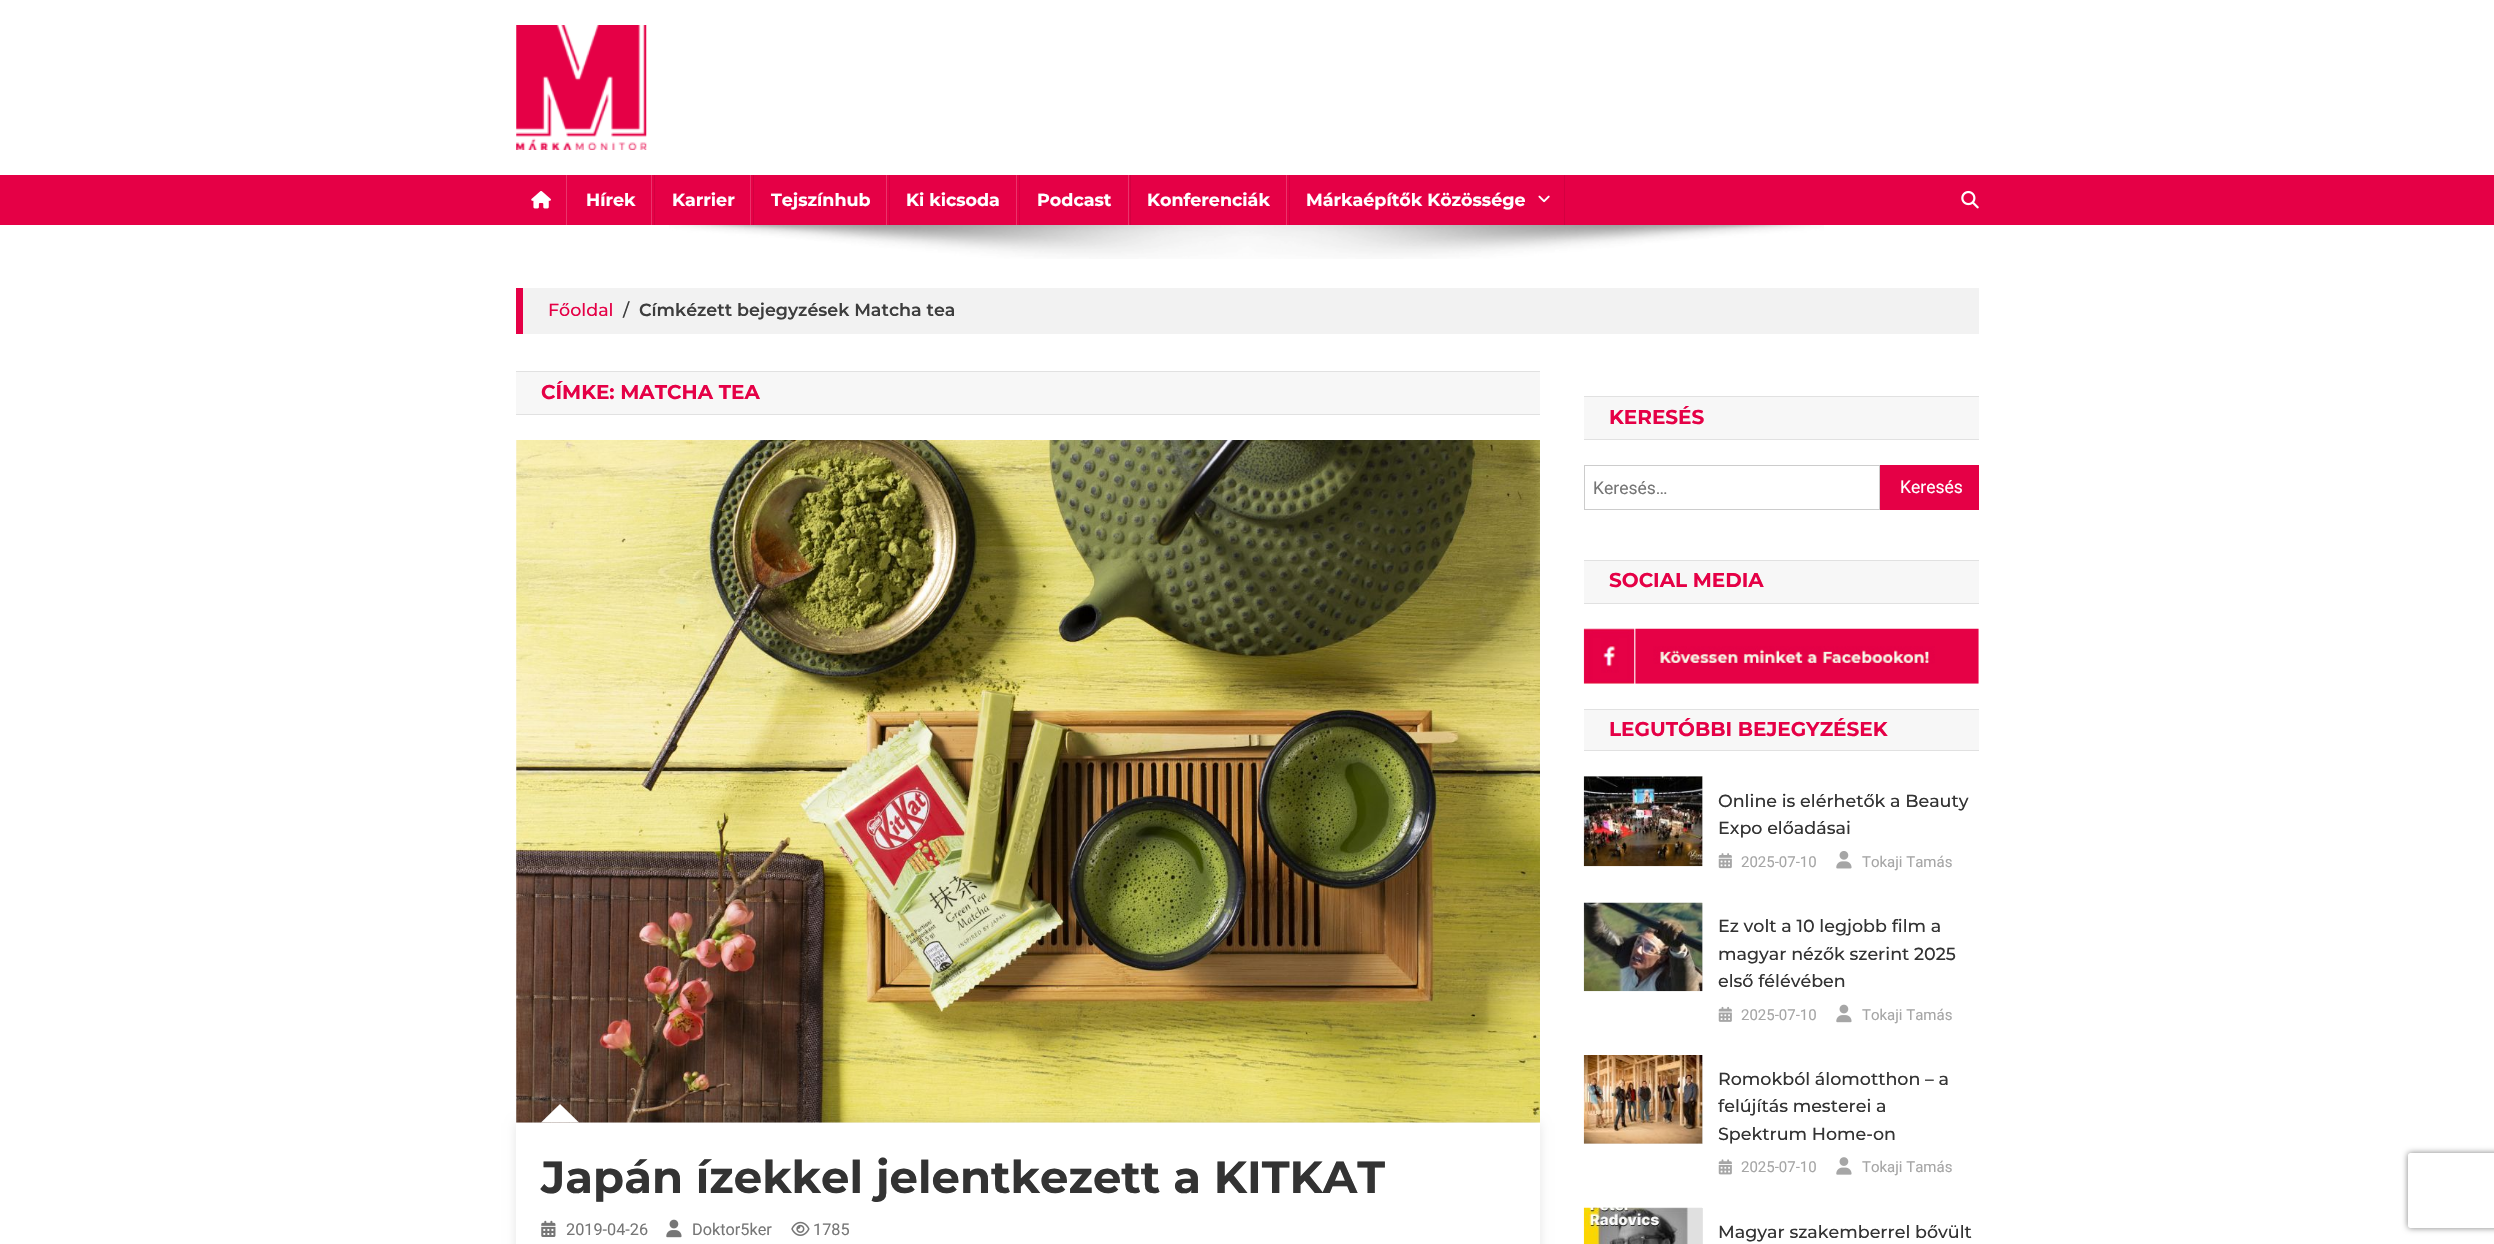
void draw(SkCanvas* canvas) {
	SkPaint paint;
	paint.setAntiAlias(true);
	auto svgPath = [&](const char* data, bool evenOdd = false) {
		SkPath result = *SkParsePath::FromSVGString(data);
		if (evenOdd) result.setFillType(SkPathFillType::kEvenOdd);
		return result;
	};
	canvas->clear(0xffffffff);
	canvas->drawImageRect(SkImages::DeferredFromEncodedData(SkData::MakeFromFileName("img1.png")), SkRect::MakeXYWH(516, 25, 131, 125), SkSamplingOptions());
	paint.setColor(0xffe50046);
	canvas->drawRect(SkRect::MakeXYWH(0, 175, 2494, 50), paint);
	canvas->drawImageRect(SkImages::DeferredFromEncodedData(SkData::MakeFromFileName("img2.png")), SkRect::MakeXYWH(531, 191, 20, 18), SkSamplingOptions());
	paint.setColor(0xffd30040);
	canvas->drawRect(SkRect::MakeXYWH(654, 175, 1, 50), paint);
	paint.setColor(0xffea336b);
	canvas->drawRect(SkRect::MakeXYWH(566, 175, 1, 50), paint);
	SkFont f1(fontMgr->matchFamilyStyle("Montserrat", SkFontStyle::Bold()), 17.5);
	f1.setSubpixel(true);
	paint.setColor(0xffffffff);
	canvas->drawString("Hírek", 586, 206, f1, paint);
	paint.setColor(0xffd30040);
	canvas->drawRect(SkRect::MakeXYWH(753, 175, 1, 50), paint);
	paint.setColor(0xffea336b);
	canvas->drawRect(SkRect::MakeXYWH(651, 175, 1, 50), paint);
	paint.setColor(0xffffffff);
	canvas->drawString("Karrier", 672, 206, f1, paint);
	paint.setColor(0xffd30040);
	canvas->drawRect(SkRect::MakeXYWH(889, 175, 1, 50), paint);
	paint.setColor(0xffea336b);
	canvas->drawRect(SkRect::MakeXYWH(750, 175, 1, 50), paint);
	paint.setColor(0xffffffff);
	canvas->drawString("Tejszínhub", 771, 206, f1, paint);
	paint.setColor(0xffd30040);
	canvas->drawRect(SkRect::MakeXYWH(1019, 175, 1, 50), paint);
	paint.setColor(0xffea336b);
	canvas->drawRect(SkRect::MakeXYWH(886, 175, 1, 50), paint);
	paint.setColor(0xffffffff);
	canvas->drawString("Ki kicsoda", 906, 206, f1, paint);
	paint.setColor(0xffd30040);
	canvas->drawRect(SkRect::MakeXYWH(1130, 175, 1, 50), paint);
	paint.setColor(0xffea336b);
	canvas->drawRect(SkRect::MakeXYWH(1016, 175, 1, 50), paint);
	paint.setColor(0xffffffff);
	canvas->drawString("Podcast", 1037, 206, f1, paint);
	paint.setColor(0xffd30040);
	canvas->drawRect(SkRect::MakeXYWH(1289, 175, 1, 50), paint);
	paint.setColor(0xffea336b);
	canvas->drawRect(SkRect::MakeXYWH(1128, 175, 1, 50), paint);
	paint.setColor(0xffffffff);
	canvas->drawString("Konferenciák", 1147, 206, f1, paint);
	paint.setColor(0xffd30040);
	canvas->drawRect(SkRect::MakeXYWH(1564, 175, 1, 50), paint);
	paint.setColor(0xffea336b);
	canvas->drawRect(SkRect::MakeXYWH(1286, 175, 1, 50), paint);
	paint.setColor(0xffffffff);
	canvas->drawString("Márkaépítők Közössége", 1306, 206, f1, paint);
	canvas->drawImageRect(SkImages::DeferredFromEncodedData(SkData::MakeFromFileName("img3.png")), SkRect::MakeXYWH(1538, 195, 12, 8), SkSamplingOptions());
	canvas->drawImageRect(SkImages::DeferredFromEncodedData(SkData::MakeFromFileName("img4.png")), SkRect::MakeXYWH(1961, 190, 18, 19), SkSamplingOptions());
	canvas->drawImageRect(SkImages::DeferredFromEncodedData(SkData::MakeFromFileName("img5.png")), SkRect::MakeXYWH(669, 225, 1155, 34), SkSamplingOptions());
	paint.setColor(0xfff2f2f2);
	canvas->drawRect(SkRect::MakeXYWH(523, 288, 1456, 46), paint);
	paint.setColor(0xffe50046);
	canvas->drawRect(SkRect::MakeXYWH(516, 288, 7, 46), paint);
	SkFont f2(fontMgr->matchFamilyStyle("Montserrat", SkFontStyle(500, SkFontStyle::kNormal_Width, SkFontStyle::kUpright_Slant)), 17.5);
	f2.setSubpixel(true);
	canvas->drawString("Főoldal", 548, 316, f2, paint);
	paint.setColor(0xff3d3d3d);
	canvas->drawString("/", 623, 316, f2, paint);
	SkFont f3(fontMgr->matchFamilyStyle("Montserrat", SkFontStyle(600, SkFontStyle::kNormal_Width, SkFontStyle::kUpright_Slant)), 17.5);
	f3.setSubpixel(true);
	canvas->drawString("Címkézett bejegyzések Matcha tea", 639, 316, f3, paint);
	paint.setColor(0xfff7f7f7);
	canvas->drawRect(SkRect::MakeXYWH(516, 372, 1024, 42), paint);
	paint.setColor(0xffe1e1e1);
	canvas->drawRect(SkRect::MakeXYWH(516, 371, 1024, 1), paint);
	canvas->drawRect(SkRect::MakeXYWH(516, 414, 1024, 1), paint);
	SkFont f4(fontMgr->matchFamilyStyle("Montserrat", SkFontStyle::Bold()), 20);
	f4.setSubpixel(true);
	paint.setColor(0xffe50046);
	canvas->drawString("CÍMKE: MATCHA TEA", 541, 399, f4, paint);
	canvas->drawImageRect(SkImages::DeferredFromEncodedData(SkData::MakeFromFileName("img6.png")), SkRect::MakeXYWH(516, 440, 1024, 683), SkSamplingOptions());
	canvas->save();
	canvas->clipPath(svgPath("M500 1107H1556V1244H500ZM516 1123H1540V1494H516Z", true), true);
	paint.setColor(0x1a000000);
	paint.setMaskFilter(SkMaskFilter::MakeBlur(kNormal_SkBlurStyle, 5));
	canvas->drawRect(SkRect::MakeXYWH(516, 1123, 1024, 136), paint);
	paint.setMaskFilter(nullptr);
	canvas->restore();
	paint.setColor(0xffffffff);
	canvas->drawPath(svgPath("M579 1122.5H541L560 1104Z"), paint);
	SkFont f5(fontMgr->matchFamilyStyle("Montserrat", SkFontStyle::Bold()), 45);
	f5.setSubpixel(true);
	paint.setColor(0xff333333);
	canvas->drawString("Japán ízekkel jelentkezett a KITKAT", 541, 1193, f5, paint);
	canvas->drawImageRect(SkImages::DeferredFromEncodedData(SkData::MakeFromFileName("img7.png")), SkRect::MakeXYWH(541, 1220, 15, 17), SkSamplingOptions());
	SkFont f6(fontMgr->matchFamilyStyle("Roboto", SkFontStyle::Normal()), 16.25);
	f6.setSubpixel(true);
	paint.setColor(0xff767676);
	canvas->drawString("2019-04-26", 566, 1235, f6, paint);
	canvas->drawImageRect(SkImages::DeferredFromEncodedData(SkData::MakeFromFileName("img8.png")), SkRect::MakeXYWH(666, 1219, 16, 19), SkSamplingOptions());
	canvas->drawString("Doktor5ker", 692, 1235, f6, paint);
	canvas->drawImageRect(SkImages::DeferredFromEncodedData(SkData::MakeFromFileName("img9.png")), SkRect::MakeXYWH(791, 1221, 19, 15), SkSamplingOptions());
	canvas->drawString("1785", 813, 1235, f6, paint);
	paint.setColor(0xfff7f7f7);
	canvas->drawRect(SkRect::MakeXYWH(1584, 397, 395, 42), paint);
	paint.setColor(0xffe1e1e1);
	canvas->drawRect(SkRect::MakeXYWH(1584, 396, 395, 1), paint);
	canvas->drawRect(SkRect::MakeXYWH(1584, 439, 395, 1), paint);
	paint.setColor(0xffe50046);
	canvas->drawString("KERESÉS", 1609, 424, f4, paint);
	paint.setStroke(true);
	paint.setStrokeWidth(1);
	paint.setColor(0xffcccccc);
	canvas->drawRect(SkRect::MakeXYWH(1584.5, 465.5, 295, 44), paint);
	SkFont f7(fontMgr->matchFamilyStyle("Roboto", SkFontStyle::Normal()), 17.5);
	f7.setSubpixel(true);
	paint.setStroke(false);
	paint.setColor(0xff767676);
	canvas->drawString("Keresés…", 1593, 494, f7, paint);
	paint.setColor(0xffe50046);
	canvas->drawRect(SkRect::MakeXYWH(1880, 465, 99, 45), paint);
	paint.setColor(0xffffffff);
	canvas->drawString("Keresés", 1900, 493, f7, paint);
	paint.setColor(0xfff7f7f7);
	canvas->drawRect(SkRect::MakeXYWH(1584, 561, 395, 42), paint);
	paint.setColor(0xffe1e1e1);
	canvas->drawRect(SkRect::MakeXYWH(1584, 560, 395, 1), paint);
	canvas->drawRect(SkRect::MakeXYWH(1584, 603, 395, 1), paint);
	paint.setColor(0xffe50046);
	canvas->drawString("SOCIAL MEDIA", 1609, 587, f4, paint);
	canvas->drawImageRect(SkImages::DeferredFromEncodedData(SkData::MakeFromFileName("img10.png")), SkRect::MakeXYWH(1583, 628, 396, 56), SkSamplingOptions());
	paint.setColor(0xfff7f7f7);
	canvas->drawRect(SkRect::MakeXYWH(1584, 710, 395, 40), paint);
	paint.setColor(0xffe1e1e1);
	canvas->drawRect(SkRect::MakeXYWH(1584, 709, 395, 1), paint);
	canvas->drawRect(SkRect::MakeXYWH(1584, 750, 395, 1), paint);
	paint.setColor(0xffe50046);
	canvas->drawString("LEGUTÓBBI BEJEGYZÉSEK", 1609, 736, f4, paint);
	paint.setColor(0xffe5e5e5);
	canvas->drawRect(SkRect::MakeXYWH(1584, 776, 119, 90), paint);
	canvas->drawImageRect(SkImages::DeferredFromEncodedData(SkData::MakeFromFileName("img11.png")), SkRect::MakeXYWH(1583, 776, 120, 91), SkSamplingOptions());
	paint.setColor(0xff333333);
	canvas->drawString("Online is elérhetők a Beauty", 1718, 807, f2, paint);
	canvas->drawString("Expo előadásai", 1718, 834, f2, paint);
	canvas->drawImageRect(SkImages::DeferredFromEncodedData(SkData::MakeFromFileName("img12.png")), SkRect::MakeXYWH(1718, 853, 14, 16), SkSamplingOptions());
	SkFont f8(fontMgr->matchFamilyStyle("Roboto", SkFontStyle::Normal()), 15);
	f8.setSubpixel(true);
	paint.setColor(0xffa6a6a6);
	canvas->drawString("2025-07-10", 1741, 867, f8, paint);
	canvas->drawImageRect(SkImages::DeferredFromEncodedData(SkData::MakeFromFileName("img13.png")), SkRect::MakeXYWH(1836, 851, 16, 18), SkSamplingOptions());
	canvas->drawString("Tokaji Tamás", 1862, 867, f8, paint);
	paint.setColor(0xffe5e5e5);
	canvas->drawRect(SkRect::MakeXYWH(1702, 903, 1, 88), paint);
	canvas->drawImageRect(SkImages::DeferredFromEncodedData(SkData::MakeFromFileName("img14.png")), SkRect::MakeXYWH(1583, 902, 120, 90), SkSamplingOptions());
	paint.setColor(0xff333333);
	canvas->drawString("Ez volt a 10 legjobb film a", 1718, 932, f2, paint);
	canvas->drawString("magyar nézők szerint 2025", 1718, 960, f2, paint);
	canvas->drawString("első félévében", 1718, 987, f2, paint);
	canvas->drawImageRect(SkImages::DeferredFromEncodedData(SkData::MakeFromFileName("img15.png")), SkRect::MakeXYWH(1718, 1006, 14, 16), SkSamplingOptions());
	paint.setColor(0xffa6a6a6);
	canvas->drawString("2025-07-10", 1741, 1020, f8, paint);
	canvas->drawImageRect(SkImages::DeferredFromEncodedData(SkData::MakeFromFileName("img16.png")), SkRect::MakeXYWH(1836, 1004, 16, 19), SkSamplingOptions());
	canvas->drawString("Tokaji Tamás", 1862, 1020, f8, paint);
	paint.setColor(0xffe5e5e5);
	canvas->drawRect(SkRect::MakeXYWH(1584, 1055, 119, 89), paint);
	canvas->drawImageRect(SkImages::DeferredFromEncodedData(SkData::MakeFromFileName("img17.png")), SkRect::MakeXYWH(1583, 1055, 120, 89), SkSamplingOptions());
	paint.setColor(0xff333333);
	canvas->drawString("Romokból álomotthon – a", 1718, 1085, f2, paint);
	canvas->drawString("felújítás mesterei a", 1718, 1112, f2, paint);
	canvas->drawString("Spektrum Home-on", 1718, 1140, f2, paint);
	canvas->drawImageRect(SkImages::DeferredFromEncodedData(SkData::MakeFromFileName("img18.png")), SkRect::MakeXYWH(1718, 1159, 14, 16), SkSamplingOptions());
	paint.setColor(0xffa6a6a6);
	canvas->drawString("2025-07-10", 1741, 1172, f8, paint);
	canvas->drawImageRect(SkImages::DeferredFromEncodedData(SkData::MakeFromFileName("img19.png")), SkRect::MakeXYWH(1836, 1157, 16, 18), SkSamplingOptions());
	canvas->drawString("Tokaji Tamás", 1862, 1172, f8, paint);
	paint.setColor(0xffe5e5e5);
	canvas->drawRect(SkRect::MakeXYWH(1702, 1208, 1, 36), paint);
	canvas->drawImageRect(SkImages::DeferredFromEncodedData(SkData::MakeFromFileName("img20.png")), SkRect::MakeXYWH(1583, 1207, 119, 37), SkSamplingOptions());
	paint.setColor(0xff333333);
	canvas->drawString("Magyar szakemberrel bővült", 1718, 1238, f2, paint);
	canvas->save();
	canvas->clipPath(svgPath("M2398 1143H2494V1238H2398ZM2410.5 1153H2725.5C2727 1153 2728 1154 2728 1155.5V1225.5C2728 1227 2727 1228 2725.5 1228H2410.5C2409 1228 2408 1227 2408 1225.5V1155.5C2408 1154 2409 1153 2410.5 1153Z", true), true);
	paint.setColor(0xff808080);
	paint.setMaskFilter(SkMaskFilter::MakeBlur(kNormal_SkBlurStyle, 3));
	canvas->drawRoundRect(SkRect::MakeXYWH(2408, 1153, 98, 75), 2.5, 2.5, paint);
	paint.setMaskFilter(nullptr);
	canvas->restore();
}
